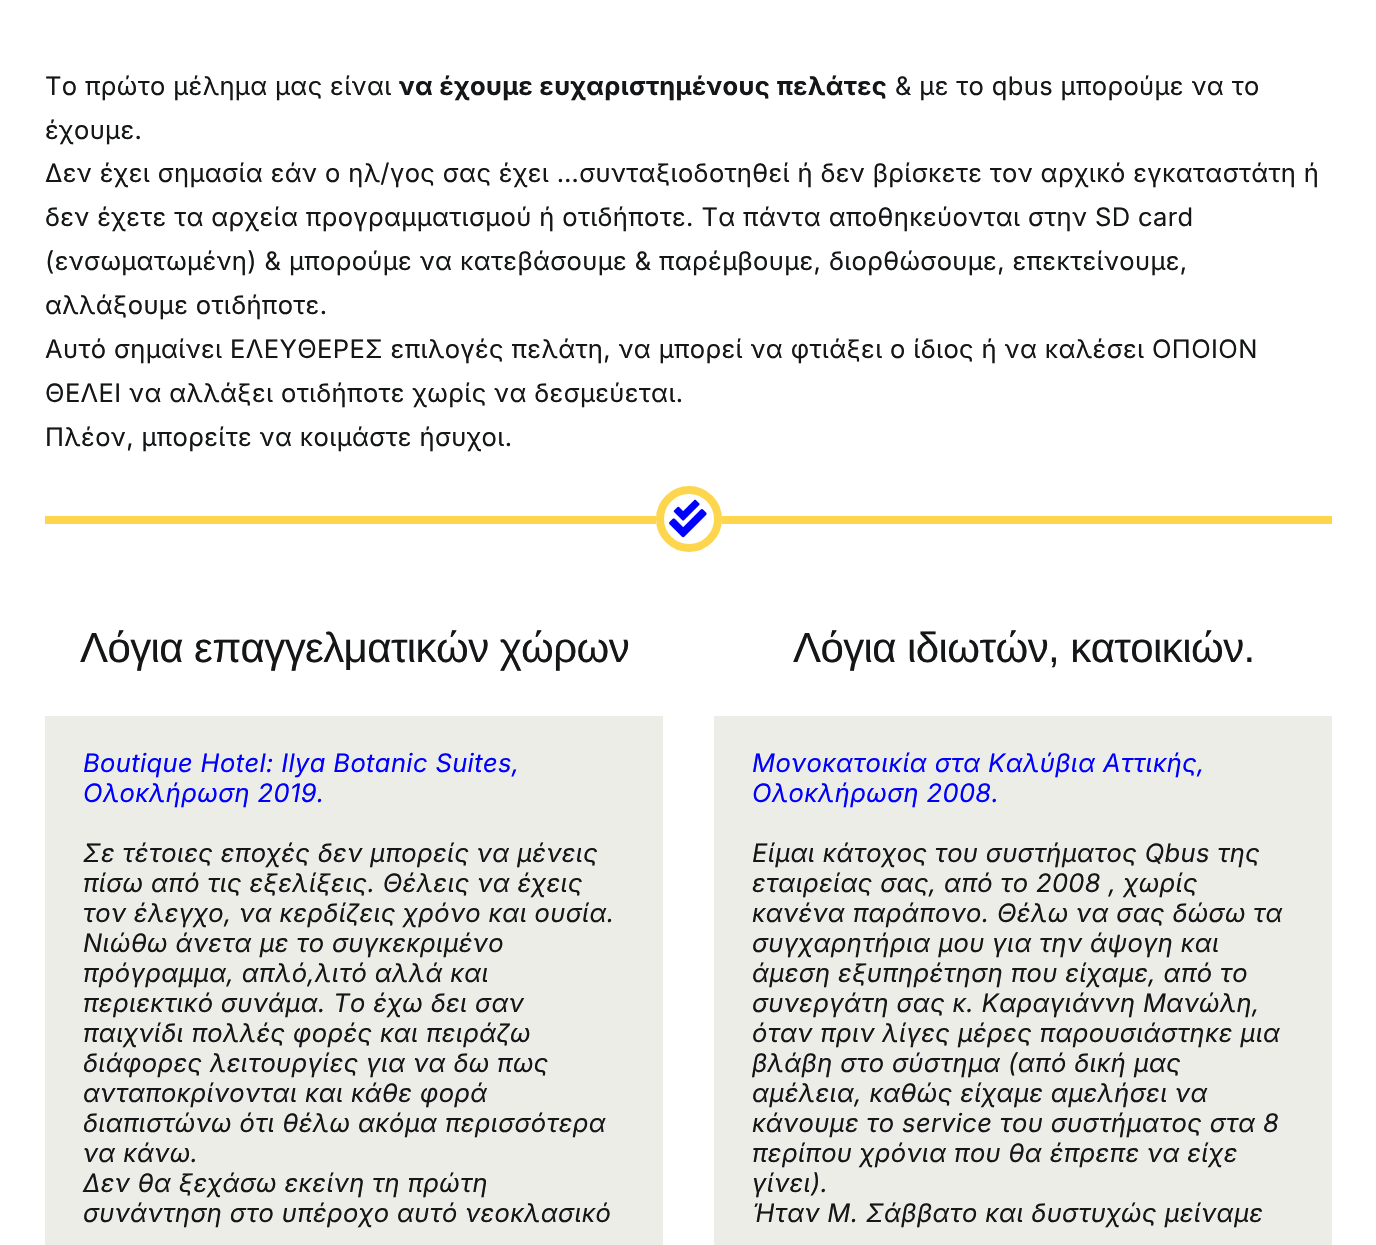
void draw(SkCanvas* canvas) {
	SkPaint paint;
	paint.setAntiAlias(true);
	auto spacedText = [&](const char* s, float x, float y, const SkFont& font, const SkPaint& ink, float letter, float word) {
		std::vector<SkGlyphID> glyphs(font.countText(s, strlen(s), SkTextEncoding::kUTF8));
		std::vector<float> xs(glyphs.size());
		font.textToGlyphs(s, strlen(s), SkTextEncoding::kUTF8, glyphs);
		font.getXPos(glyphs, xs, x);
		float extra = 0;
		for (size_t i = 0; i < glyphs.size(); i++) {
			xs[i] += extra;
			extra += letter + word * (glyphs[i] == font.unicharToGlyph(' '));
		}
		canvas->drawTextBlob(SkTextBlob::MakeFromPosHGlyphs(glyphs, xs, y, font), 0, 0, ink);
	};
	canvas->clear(0xffffffff);
	SkFont f1(fontMgr->matchFamilyStyle("Inter", SkFontStyle::Normal()), 25.5);
	f1.setSubpixel(true);
	paint.setColor(0xff141617);
	spacedText("Το πρώτο μέλημα μας είναι", 45, 95, f1, paint, 0.38, 0);
	SkFont f2(fontMgr->matchFamilyStyle("Inter", SkFontStyle::Bold()), 25.5);
	f2.setSubpixel(true);
	spacedText("να έχουμε ευχαριστημένους πελάτες", 399, 95, f2, paint, 0.38, 0);
	spacedText("& με το qbus μπορούμε να το", 895, 95, f1, paint, 0.38, 0);
	spacedText("έχουμε.", 45, 139, f1, paint, 0.38, 0);
	spacedText("Δεν έχει σημασία εάν ο ηλ/γος σας έχει …συνταξιοδοτηθεί ή δεν βρίσκετε τον αρχικό εγκαταστάτη ή", 45, 182, f1, paint, 0.38, 0);
	spacedText("δεν έχετε τα αρχεία προγραμματισμού ή οτιδήποτε. Τα πάντα αποθηκεύονται στην SD card", 45, 226, f1, paint, 0.38, 0);
	spacedText("(ενσωματωμένη) & μπορούμε να κατεβάσουμε & παρέμβουμε, διορθώσουμε, επεκτείνουμε,", 45, 270, f1, paint, 0.38, 0);
	spacedText("αλλάξουμε οτιδήποτε.", 45, 314, f1, paint, 0.38, 0);
	spacedText("Αυτό σημαίνει ΕΛΕΥΘΕΡΕΣ επιλογές πελάτη, να μπορεί να φτιάξει ο ίδιος ή να καλέσει ΟΠΟΙΟΝ", 45, 358, f1, paint, 0.38, 0);
	spacedText("ΘΕΛΕΙ να αλλάξει οτιδήποτε χωρίς να δεσμεύεται.", 45, 402, f1, paint, 0.38, 0);
	spacedText("Πλέον, μπορείτε να κοιμάστε ήσυχοι.", 45, 446, f1, paint, 0.38, 0);
	paint.setColor(0xfffdd64d);
	canvas->drawRect(SkRect::MakeXYWH(45, 516, 611, 8), paint);
	paint.setStroke(true);
	paint.setStrokeWidth(8);
	canvas->drawCircle(689, 519, 29, paint);
	canvas->drawImageRect(SkImages::DeferredFromEncodedData(SkData::MakeFromFileName("img1.png")), SkRect::MakeXYWH(669, 499, 38, 39), SkSamplingOptions());
	paint.setStroke(false);
	canvas->drawRect(SkRect::MakeXYWH(722, 516, 610, 8), paint);
	SkFont f3(fontMgr->matchFamilyStyle("Liberation Sans", SkFontStyle::Normal()), 42);
	f3.setSubpixel(true);
	paint.setColor(0xff141617);
	spacedText("Λόγια επαγγελματικών χώρων", 80, 662, f3, paint, -0.6, 0);
	paint.setColor(0xffedede8);
	canvas->drawRect(SkRect::MakeXYWH(45, 716, 618, 529), paint);
	SkFont f4(fontMgr->matchFamilyStyle("Inter", SkFontStyle::Italic()), 25.5);
	f4.setSubpixel(true);
	paint.setColor(0xff0000ff);
	spacedText("Boutique Hotel: Ilya Botanic Suites,", 83, 772, f4, paint, 0.38, 0);
	spacedText("Ολοκλήρωση 2019.", 83, 802, f4, paint, 0.38, 0);
	paint.setColor(0xff141617);
	spacedText("Σε τέτοιες εποχές δεν μπορείς να μένεις", 83, 862, f4, paint, 0.38, 0);
	spacedText("πίσω από τις εξελίξεις. Θέλεις να έχεις", 83, 892, f4, paint, 0.38, 0);
	spacedText("τον έλεγχο, να κερδίζεις χρόνο και ουσία.", 83, 922, f4, paint, 0.38, 0);
	spacedText("Νιώθω άνετα με το συγκεκριμένο", 83, 952, f4, paint, 0.38, 0);
	spacedText("πρόγραμμα, απλό,λιτό αλλά και", 83, 982, f4, paint, 0.38, 0);
	spacedText("περιεκτικό συνάμα. Το έχω δει σαν", 83, 1012, f4, paint, 0.38, 0);
	spacedText("παιχνίδι πολλές φορές και πειράζω", 83, 1042, f4, paint, 0.38, 0);
	spacedText("διάφορες λειτουργίες για να δω πως", 83, 1072, f4, paint, 0.38, 0);
	spacedText("ανταποκρίνονται και κάθε φορά", 83, 1102, f4, paint, 0.38, 0);
	spacedText("διαπιστώνω ότι θέλω ακόμα περισσότερα", 83, 1132, f4, paint, 0.38, 0);
	spacedText("να κάνω.", 83, 1162, f4, paint, 0.38, 0);
	spacedText("Δεν θα ξεχάσω εκείνη τη πρώτη", 83, 1192, f4, paint, 0.38, 0);
	spacedText("συνάντηση στο υπέροχο αυτό νεοκλασικό", 83, 1222, f4, paint, 0.38, 0);
	spacedText("Λόγια ιδιωτών, κατοικιών.", 793, 662, f3, paint, -0.6, 0);
	paint.setColor(0xffedede8);
	canvas->drawRect(SkRect::MakeXYWH(714, 716, 618, 529), paint);
	paint.setColor(0xff0000ff);
	spacedText("Μονοκατοικία στα Καλύβια Αττικής,", 752, 772, f4, paint, 0.38, 0);
	spacedText("Ολοκλήρωση 2008.", 752, 802, f4, paint, 0.38, 0);
	paint.setColor(0xff141617);
	spacedText("Είμαι κάτοχος του συστήματος Qbus της", 752, 862, f4, paint, 0.38, 0);
	spacedText("εταιρείας σας, από το 2008 , χωρίς", 752, 892, f4, paint, 0.38, 0);
	spacedText("κανένα παράπονο. Θέλω να σας δώσω τα", 752, 922, f4, paint, 0.38, 0);
	spacedText("συγχαρητήρια μου για την άψογη και", 752, 952, f4, paint, 0.38, 0);
	spacedText("άμεση εξυπηρέτηση που είχαμε, από το", 752, 982, f4, paint, 0.38, 0);
	spacedText("συνεργάτη σας κ. Καραγιάννη Μανώλη,", 752, 1012, f4, paint, 0.38, 0);
	spacedText("όταν πριν λίγες μέρες παρουσιάστηκε μια", 752, 1042, f4, paint, 0.38, 0);
	spacedText("βλάβη στο σύστημα (από δική μας", 752, 1072, f4, paint, 0.38, 0);
	spacedText("αμέλεια, καθώς είχαμε αμελήσει να", 752, 1102, f4, paint, 0.38, 0);
	spacedText("κάνουμε το service του συστήματος στα 8", 752, 1132, f4, paint, 0.38, 0);
	spacedText("περίπου χρόνια που θα έπρεπε να είχε", 752, 1162, f4, paint, 0.38, 0);
	spacedText("γίνει).", 752, 1192, f4, paint, 0.38, 0);
	spacedText("Ήταν Μ. Σάββατο και δυστυχώς μείναμε", 752, 1222, f4, paint, 0.38, 0);
}
